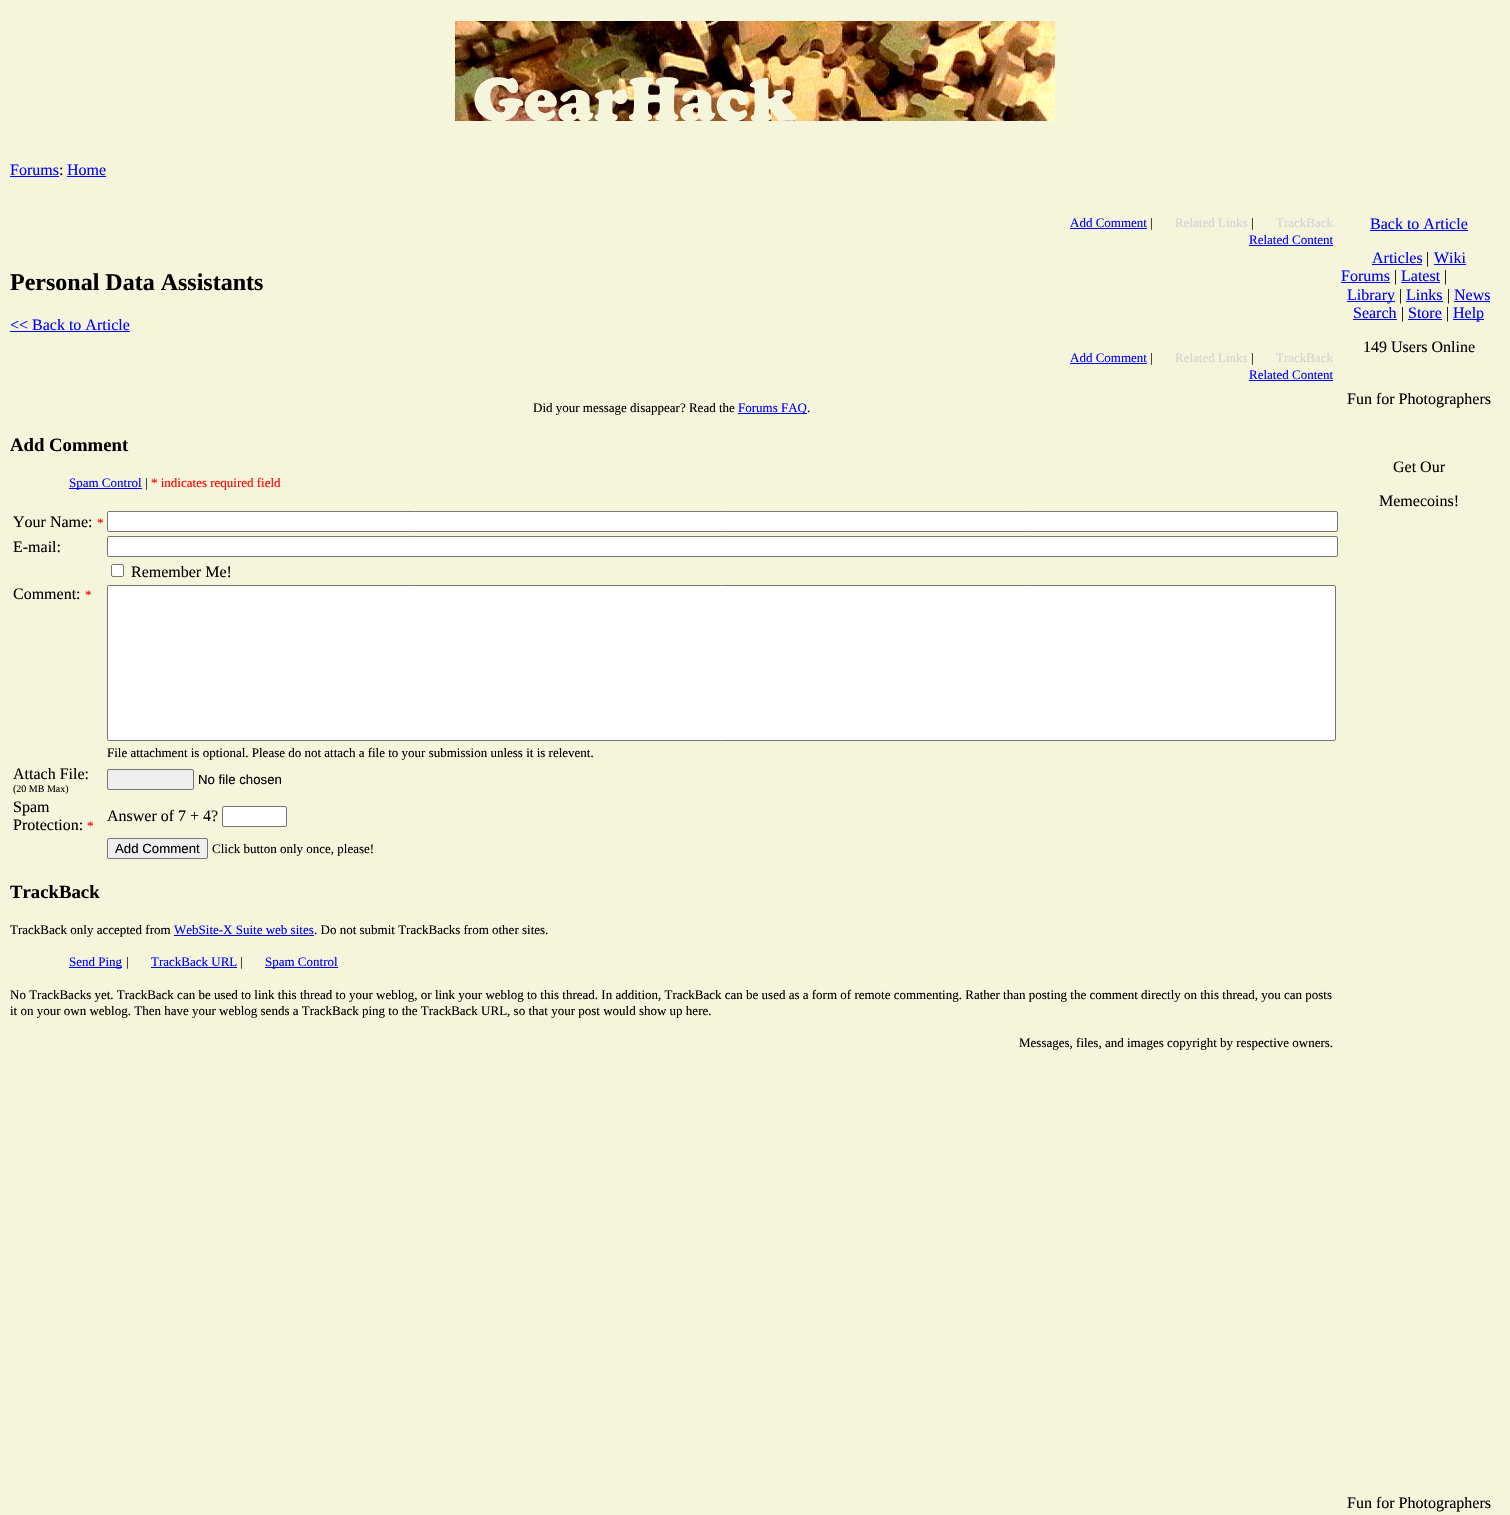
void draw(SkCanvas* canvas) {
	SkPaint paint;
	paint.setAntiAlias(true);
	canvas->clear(0xfff5f5dc);
	canvas->drawImageRect(SkImages::DeferredFromEncodedData(SkData::MakeFromFileName("img1.png")), SkRect::MakeXYWH(455, 21, 600, 100), SkSamplingOptions());
	SkFont f1(fontMgr->matchFamilyStyle("Liberation Serif", SkFontStyle::Normal()), 16);
	f1.setSubpixel(true);
	paint.setColor(0xff0000ff);
	canvas->drawString("Forums", 10, 175, f1, paint);
	canvas->drawRect(SkRect::MakeXYWH(10, 176, 49, 1), paint);
	paint.setColor(0xff000000);
	canvas->drawString(":", 59, 175, f1, paint);
	paint.setColor(0xff0000ff);
	canvas->drawString("Home", 67, 175, f1, paint);
	canvas->drawRect(SkRect::MakeXYWH(67, 176, 39, 1), paint);
	SkFont f2(fontMgr->matchFamilyStyle("Liberation Serif", SkFontStyle::Normal()), 13);
	f2.setSubpixel(true);
	canvas->drawString("Add Comment", 1070, 227, f2, paint);
	canvas->drawRect(SkRect::MakeXYWH(1070, 228, 77, 1), paint);
	paint.setColor(0xff000000);
	canvas->drawString("|", 1150, 227, f2, paint);
	paint.setColor(0xffd3d3d3);
	canvas->drawString("Related Links", 1175, 227, f2, paint);
	paint.setColor(0xff000000);
	canvas->drawString("|", 1251, 227, f2, paint);
	paint.setColor(0xffd3d3d3);
	canvas->drawString("TrackBack", 1276, 227, f2, paint);
	paint.setColor(0xff0000ff);
	canvas->drawString("Related Content", 1249, 244, f2, paint);
	canvas->drawRect(SkRect::MakeXYWH(1249, 245, 84, 1), paint);
	SkFont f3(fontMgr->matchFamilyStyle("Liberation Serif", SkFontStyle::Bold()), 24);
	f3.setSubpixel(true);
	paint.setColor(0xff000000);
	canvas->drawString("Personal Data Assistants", 10, 290, f3, paint);
	paint.setColor(0xff0000ff);
	canvas->drawString("<< Back to Article", 10, 330, f1, paint);
	canvas->drawRect(SkRect::MakeXYWH(10, 331, 120, 1), paint);
	canvas->drawString("Add Comment", 1070, 362, f2, paint);
	canvas->drawRect(SkRect::MakeXYWH(1070, 363, 77, 1), paint);
	paint.setColor(0xff000000);
	canvas->drawString("|", 1150, 362, f2, paint);
	paint.setColor(0xffd3d3d3);
	canvas->drawString("Related Links", 1175, 362, f2, paint);
	paint.setColor(0xff000000);
	canvas->drawString("|", 1251, 362, f2, paint);
	paint.setColor(0xffd3d3d3);
	canvas->drawString("TrackBack", 1276, 362, f2, paint);
	paint.setColor(0xff0000ff);
	canvas->drawString("Related Content", 1249, 379, f2, paint);
	canvas->drawRect(SkRect::MakeXYWH(1249, 380, 84, 1), paint);
	paint.setColor(0xff000000);
	canvas->drawString("Did your message disappear? Read the", 533, 412, f2, paint);
	paint.setColor(0xff0000ff);
	canvas->drawRect(SkRect::MakeXYWH(738, 413, 69, 1), paint);
	canvas->drawString("Forums FAQ", 738, 412, f2, paint);
	paint.setColor(0xff000000);
	canvas->drawString(".", 807, 412, f2, paint);
	SkFont f4(fontMgr->matchFamilyStyle("Liberation Serif", SkFontStyle::Bold()), 18.75);
	f4.setSubpixel(true);
	canvas->drawString("Add Comment", 10, 451, f4, paint);
	paint.setColor(0xff0000ff);
	canvas->drawRect(SkRect::MakeXYWH(69, 488, 73, 1), paint);
	canvas->drawString("Spam Control", 69, 487, f2, paint);
	paint.setColor(0xff000000);
	canvas->drawString("|", 145, 487, f2, paint);
	paint.setColor(0xffff0000);
	canvas->drawString("* indicates required field", 151, 487, f2, paint);
	paint.setColor(0xff000000);
	canvas->drawString("Your Name:", 13, 527, f1, paint);
	paint.setColor(0xffff0000);
	canvas->drawString("*", 97, 527, f2, paint);
	paint.setColor(0xffffffff);
	canvas->drawRoundRect(SkRect::MakeXYWH(107.5, 511.5, 1230, 20), 1.5, 1.5, paint);
	paint.setStroke(true);
	paint.setStrokeWidth(1);
	paint.setColor(0xff767676);
	canvas->drawRoundRect(SkRect::MakeXYWH(107.5, 511.5, 1230, 20), 1.5, 1.5, paint);
	paint.setStroke(false);
	paint.setColor(0xff000000);
	canvas->drawString("E-mail:", 13, 552, f1, paint);
	paint.setColor(0xffffffff);
	canvas->drawRoundRect(SkRect::MakeXYWH(107.5, 536.5, 1230, 20), 1.5, 1.5, paint);
	paint.setStroke(true);
	paint.setColor(0xff767676);
	canvas->drawRoundRect(SkRect::MakeXYWH(107.5, 536.5, 1230, 20), 1.5, 1.5, paint);
	paint.setStroke(false);
	paint.setColor(0xffffffff);
	canvas->drawRoundRect(SkRect::MakeXYWH(111.5, 564.5, 12, 12), 1.5, 1.5, paint);
	paint.setStroke(true);
	paint.setColor(0xff767676);
	canvas->drawRoundRect(SkRect::MakeXYWH(111.5, 564.5, 12, 12), 1.5, 1.5, paint);
	paint.setStroke(false);
	paint.setColor(0xff000000);
	canvas->drawString("Remember Me!", 131, 577, f1, paint);
	canvas->drawString("Comment:", 13, 599, f1, paint);
	paint.setColor(0xffff0000);
	canvas->drawString("*", 85, 599, f2, paint);
	paint.setColor(0xffffffff);
	canvas->drawRoundRect(SkRect::MakeXYWH(107.5, 585.5, 1228, 155), 1.5, 1.5, paint);
	paint.setStroke(true);
	paint.setColor(0xff767676);
	canvas->drawRoundRect(SkRect::MakeXYWH(107.5, 585.5, 1228, 155), 1.5, 1.5, paint);
	paint.setStroke(false);
	paint.setColor(0xff000000);
	canvas->drawString("File attachment is optional. Please do not attach a file to your submission unless it is relevent.", 107, 757, f2, paint);
	canvas->drawString("Attach File:", 13, 779, f1, paint);
	SkFont f5(fontMgr->matchFamilyStyle("Liberation Serif", SkFontStyle::Normal()), 10);
	f5.setSubpixel(true);
	canvas->drawString("(20 MB Max)", 13, 792, f5, paint);
	paint.setColor(0xffefefef);
	canvas->drawRoundRect(SkRect::MakeXYWH(107.5, 769.5, 86, 20), 1.5, 1.5, paint);
	paint.setStroke(true);
	paint.setColor(0xff767676);
	canvas->drawRoundRect(SkRect::MakeXYWH(107.5, 769.5, 86, 20), 1.5, 1.5, paint);
	SkFont f6(fontMgr->matchFamilyStyle("Liberation Sans", SkFontStyle::Normal()), 13.25);
	f6.setSubpixel(true);
	paint.setStroke(false);
	paint.setColor(0xff000000);
	canvas->drawString("No file chosen", 198, 784, f6, paint);
	canvas->drawString("Spam", 13, 812, f1, paint);
	canvas->drawString("Protection:", 13, 830, f1, paint);
	paint.setColor(0xffff0000);
	canvas->drawString("*", 87, 830, f2, paint);
	paint.setColor(0xff000000);
	canvas->drawString("Answer of 7 + 4?", 107, 821, f1, paint);
	paint.setColor(0xffffffff);
	canvas->drawRoundRect(SkRect::MakeXYWH(222.5, 806.5, 64, 20), 1.5, 1.5, paint);
	paint.setStroke(true);
	paint.setColor(0xff767676);
	canvas->drawRoundRect(SkRect::MakeXYWH(222.5, 806.5, 64, 20), 1.5, 1.5, paint);
	paint.setStroke(false);
	paint.setColor(0xffefefef);
	canvas->drawRoundRect(SkRect::MakeXYWH(107.5, 838.5, 100, 20), 1.5, 1.5, paint);
	paint.setStroke(true);
	paint.setColor(0xff767676);
	canvas->drawRoundRect(SkRect::MakeXYWH(107.5, 838.5, 100, 20), 1.5, 1.5, paint);
	paint.setStroke(false);
	paint.setColor(0xff000000);
	canvas->drawString("Add Comment", 115, 853, f6, paint);
	canvas->drawString("Click button only once, please!", 212, 853, f2, paint);
	canvas->drawString("TrackBack", 10, 898, f4, paint);
	canvas->drawString("TrackBack only accepted from", 10, 934, f2, paint);
	paint.setColor(0xff0000ff);
	canvas->drawString("WebSite-X Suite web sites", 174, 934, f2, paint);
	canvas->drawRect(SkRect::MakeXYWH(174, 935, 140, 1), paint);
	paint.setColor(0xff000000);
	canvas->drawString(". Do not submit TrackBacks from other sites.", 314, 934, f2, paint);
	paint.setColor(0xff0000ff);
	canvas->drawRect(SkRect::MakeXYWH(69, 967, 53, 1), paint);
	canvas->drawString("Send Ping", 69, 966, f2, paint);
	paint.setColor(0xff000000);
	canvas->drawString("|", 126, 966, f2, paint);
	paint.setColor(0xff0000ff);
	canvas->drawString("TrackBack URL", 151, 966, f2, paint);
	canvas->drawRect(SkRect::MakeXYWH(151, 967, 86, 1), paint);
	paint.setColor(0xff000000);
	canvas->drawString("|", 240, 966, f2, paint);
	paint.setColor(0xff0000ff);
	canvas->drawRect(SkRect::MakeXYWH(265, 967, 73, 1), paint);
	canvas->drawString("Spam Control", 265, 966, f2, paint);
	paint.setColor(0xff000000);
	canvas->drawString("No TrackBacks yet. TrackBack can be used to link this thread to your weblog, or link your weblog to this thread. In addition, TrackBack can be used as a form of remote commenting. Rather than posting the comment directly on this thread, you can posts", 10, 999, f2, paint);
	canvas->drawString("it on your own weblog. Then have your weblog sends a TrackBack ping to the TrackBack URL, so that your post would show up here.", 10, 1015, f2, paint);
	canvas->drawString("Messages, files, and images copyright by respective owners.", 1019, 1047, f2, paint);
	paint.setColor(0xff0000ff);
	canvas->drawString("Back to Article", 1370, 229, f1, paint);
	canvas->drawRect(SkRect::MakeXYWH(1370, 230, 98, 1), paint);
	canvas->drawString("Articles", 1372, 263, f1, paint);
	canvas->drawRect(SkRect::MakeXYWH(1372, 264, 50, 1), paint);
	paint.setColor(0xff000000);
	canvas->drawString("|", 1426, 263, f1, paint);
	paint.setColor(0xff0000ff);
	canvas->drawString("Wiki", 1434, 263, f1, paint);
	canvas->drawRect(SkRect::MakeXYWH(1434, 264, 32, 1), paint);
	canvas->drawString("Forums", 1341, 281, f1, paint);
	canvas->drawRect(SkRect::MakeXYWH(1341, 282, 49, 1), paint);
	paint.setColor(0xff000000);
	canvas->drawString("|", 1394, 281, f1, paint);
	paint.setColor(0xff0000ff);
	canvas->drawString("Latest", 1401, 281, f1, paint);
	canvas->drawRect(SkRect::MakeXYWH(1401, 282, 39, 1), paint);
	paint.setColor(0xff000000);
	canvas->drawString("|", 1444, 281, f1, paint);
	paint.setColor(0xff0000ff);
	canvas->drawRect(SkRect::MakeXYWH(1347, 301, 48, 1), paint);
	canvas->drawString("Library", 1347, 300, f1, paint);
	paint.setColor(0xff000000);
	canvas->drawString("|", 1399, 300, f1, paint);
	paint.setColor(0xff0000ff);
	canvas->drawString("Links", 1406, 300, f1, paint);
	canvas->drawRect(SkRect::MakeXYWH(1406, 301, 37, 1), paint);
	paint.setColor(0xff000000);
	canvas->drawString("|", 1447, 300, f1, paint);
	paint.setColor(0xff0000ff);
	canvas->drawString("News", 1454, 300, f1, paint);
	canvas->drawRect(SkRect::MakeXYWH(1454, 301, 36, 1), paint);
	canvas->drawString("Search", 1353, 318, f1, paint);
	canvas->drawRect(SkRect::MakeXYWH(1353, 319, 44, 1), paint);
	paint.setColor(0xff000000);
	canvas->drawString("|", 1401, 318, f1, paint);
	paint.setColor(0xff0000ff);
	canvas->drawString("Store", 1408, 318, f1, paint);
	canvas->drawRect(SkRect::MakeXYWH(1408, 319, 34, 1), paint);
	paint.setColor(0xff000000);
	canvas->drawString("|", 1446, 318, f1, paint);
	paint.setColor(0xff0000ff);
	canvas->drawRect(SkRect::MakeXYWH(1453, 319, 31, 1), paint);
	canvas->drawString("Help", 1453, 318, f1, paint);
	paint.setColor(0xff000000);
	canvas->drawString("149 Users Online", 1363, 352, f1, paint);
	canvas->drawString("Fun for Photographers", 1347, 404, f1, paint);
	canvas->drawString("Get Our", 1393, 472, f1, paint);
	canvas->drawString("Memecoins!", 1379, 506, f1, paint);
	canvas->drawString("Fun for Photographers", 1347, 1508, f1, paint);
}
